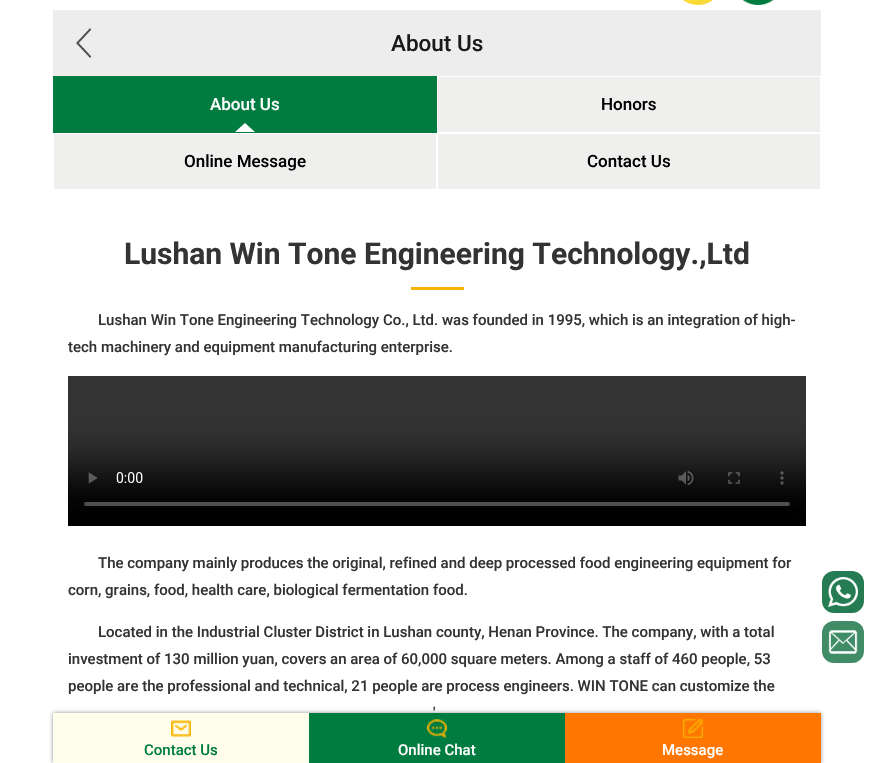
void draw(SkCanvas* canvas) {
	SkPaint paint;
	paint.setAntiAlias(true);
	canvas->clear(0xffffffff);
	canvas->drawImageRect(SkImages::DeferredFromEncodedData(SkData::MakeFromFileName("img1.png")), SkRect::MakeXYWH(683, 0, 30, 5), SkSamplingOptions());
	canvas->drawImageRect(SkImages::DeferredFromEncodedData(SkData::MakeFromFileName("img2.png")), SkRect::MakeXYWH(742, 0, 32, 5), SkSamplingOptions());
	paint.setColor(0xffededed);
	canvas->drawRect(SkRect::MakeXYWH(53, 10, 768, 66), paint);
	canvas->drawImageRect(SkImages::DeferredFromEncodedData(SkData::MakeFromFileName("img3.png")), SkRect::MakeXYWH(76, 28, 15, 30), SkSamplingOptions());
	SkFont f1(fontMgr->matchFamilyStyle("Roboto", SkFontStyle(500, SkFontStyle::kNormal_Width, SkFontStyle::kUpright_Slant)), 22.5);
	f1.setSubpixel(true);
	paint.setColor(0xff1a1a1a);
	canvas->drawString("About Us", 391, 51, f1, paint);
	paint.setColor(0xff007c40);
	canvas->drawRect(SkRect::MakeXYWH(53, 76, 384, 57), paint);
	canvas->drawImageRect(SkImages::DeferredFromEncodedData(SkData::MakeFromFileName("img4.png")), SkRect::MakeXYWH(235, 123, 20, 9), SkSamplingOptions());
	SkFont f2(fontMgr->matchFamilyStyle("Roboto", SkFontStyle(500, SkFontStyle::kNormal_Width, SkFontStyle::kUpright_Slant)), 17);
	f2.setSubpixel(true);
	paint.setColor(0xffffffff);
	canvas->drawString("About Us", 210, 110, f2, paint);
	paint.setColor(0xffefefed);
	canvas->drawRect(SkRect::MakeXYWH(438, 77, 382, 55), paint);
	paint.setColor(0xff000000);
	canvas->drawString("Honors", 601, 110, f2, paint);
	paint.setColor(0xffefefed);
	canvas->drawRect(SkRect::MakeXYWH(54, 134, 382, 55), paint);
	paint.setColor(0xff000000);
	canvas->drawString("Online Message", 184, 167, f2, paint);
	paint.setColor(0xffefefed);
	canvas->drawRect(SkRect::MakeXYWH(438, 134, 382, 55), paint);
	paint.setColor(0xff000000);
	canvas->drawString("Contact Us", 587, 167, f2, paint);
	paint.setColor(0xfff6b302);
	canvas->drawRect(SkRect::MakeXYWH(411, 287, 53, 3), paint);
	SkFont f3(fontMgr->matchFamilyStyle("Roboto", SkFontStyle::Bold()), 30);
	f3.setSubpixel(true);
	paint.setColor(0xff333333);
	canvas->drawString("Lushan Win Tone Engineering Technology.,Ltd", 124, 264, f3, paint);
	SkFont f4(fontMgr->matchFamilyStyle("Roboto", SkFontStyle(500, SkFontStyle::kNormal_Width, SkFontStyle::kUpright_Slant)), 15);
	f4.setSubpixel(true);
	canvas->drawString("Lushan Win Tone Engineering Technology Co., Ltd. was founded in 1995, which is an integration of high-", 98, 325, f4, paint);
	canvas->drawString("tech machinery and equipment manufacturing enterprise.", 68, 352, f4, paint);
	canvas->drawImageRect(SkImages::DeferredFromEncodedData(SkData::MakeFromFileName("img5.png")), SkRect::MakeXYWH(68, 376, 738, 150), SkSamplingOptions());
	canvas->drawString("The company mainly produces the original, refined and deep processed food engineering equipment for", 98, 568, f4, paint);
	canvas->drawString("corn, grains, food, health care, biological fermentation food.", 68, 595, f4, paint);
	canvas->drawString("Located in the Industrial Cluster District in Lushan county, Henan Province. The company, with a total", 98, 637, f4, paint);
	canvas->drawString("investment of 130 million yuan, covers an area of 60,000 square meters. Among a staff of 460 people, 53", 68, 664, f4, paint);
	canvas->drawString("people are the professional and technical, 21 people are process engineers. WIN TONE can customize the", 68, 691, f4, paint);
	canvas->drawString("'", 433, 718, f4, paint);
	paint.setColor(0xff267c52);
	canvas->drawRoundRect(SkRect::MakeXYWH(822, 571, 42, 42), 12, 12, paint);
	canvas->drawImageRect(SkImages::DeferredFromEncodedData(SkData::MakeFromFileName("img6.png")), SkRect::MakeXYWH(828, 577, 30, 30), SkSamplingOptions());
	paint.setColor(0xff408c66);
	canvas->drawRoundRect(SkRect::MakeXYWH(822, 621, 42, 42), 12, 12, paint);
	canvas->drawImageRect(SkImages::DeferredFromEncodedData(SkData::MakeFromFileName("img7.png")), SkRect::MakeXYWH(828, 630, 30, 24), SkSamplingOptions());
	paint.setColor(0xff909090);
	paint.setMaskFilter(SkMaskFilter::MakeBlur(kNormal_SkBlurStyle, 2));
	canvas->drawRect(SkRect::MakeXYWH(53, 713, 768, 50), paint);
	paint.setMaskFilter(nullptr);
	paint.setColor(0xfffffeec);
	canvas->drawRect(SkRect::MakeXYWH(53, 713, 256, 50), paint);
	canvas->drawImageRect(SkImages::DeferredFromEncodedData(SkData::MakeFromFileName("img8.png")), SkRect::MakeXYWH(171, 720, 20, 17), SkSamplingOptions());
	paint.setColor(0xff007c41);
	canvas->drawString("Contact Us", 144, 755, f4, paint);
	paint.setColor(0xff007c40);
	canvas->drawRect(SkRect::MakeXYWH(309, 713, 256, 50), paint);
	canvas->drawImageRect(SkImages::DeferredFromEncodedData(SkData::MakeFromFileName("img9.png")), SkRect::MakeXYWH(427, 719, 20, 19), SkSamplingOptions());
	paint.setColor(0xffffffff);
	canvas->drawString("Online Chat", 398, 755, f4, paint);
	paint.setColor(0xffff7600);
	canvas->drawRect(SkRect::MakeXYWH(565, 713, 256, 50), paint);
	canvas->drawImageRect(SkImages::DeferredFromEncodedData(SkData::MakeFromFileName("img10.png")), SkRect::MakeXYWH(683, 719, 20, 19), SkSamplingOptions());
	paint.setColor(0xffffffff);
	canvas->drawString("Message", 662, 755, f4, paint);
}
